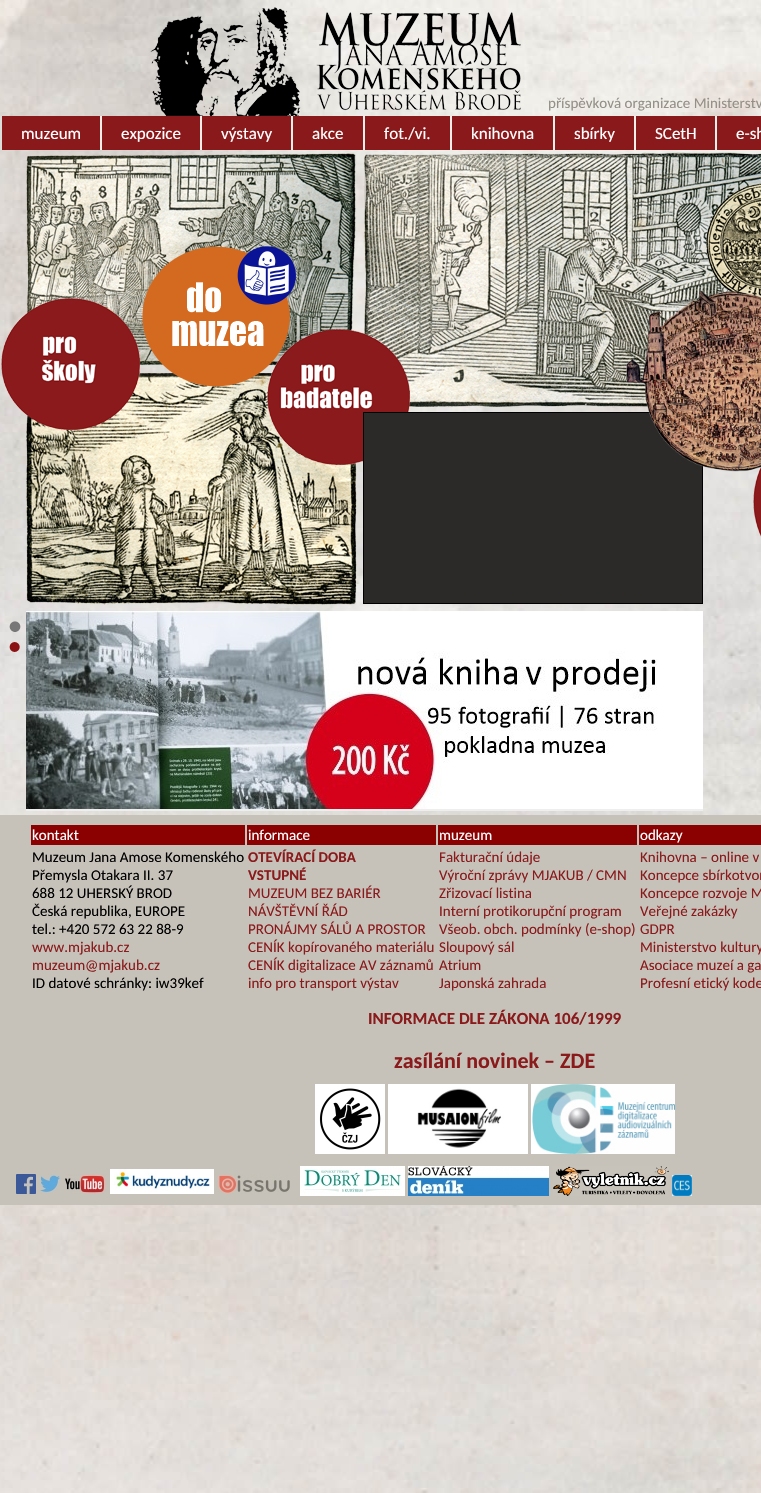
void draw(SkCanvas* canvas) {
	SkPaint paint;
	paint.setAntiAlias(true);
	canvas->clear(0xffffffff);
	canvas->drawImageRect(SkImages::DeferredFromEncodedData(SkData::MakeFromFileName("img1.png")), SkRect::MakeXYWH(0, 0, 761, 1493), SkSamplingOptions());
	canvas->drawImageRect(SkImages::DeferredFromEncodedData(SkData::MakeFromFileName("img2.png")), SkRect::MakeXYWH(150, 7, 371, 109), SkSamplingOptions());
	SkFont f1(fontMgr->matchFamilyStyle("Carlito", SkFontStyle::Normal()), 15);
	f1.setSubpixel(true);
	paint.setColor(0xff949088);
	canvas->drawString("příspěvková organizace Ministerstv", 548, 108, f1, paint);
	paint.setColor(0xffdcdedb);
	canvas->drawRect(SkRect::MakeXYWH(0, 116, 2, 34), paint);
	paint.setColor(0xff8a191b);
	canvas->drawRect(SkRect::MakeXYWH(2, 116, 98, 34), paint);
	paint.setColor(0xfff2efea);
	canvas->drawRect(SkRect::MakeXYWH(100, 116, 2, 34), paint);
	SkFont f2(fontMgr->matchFamilyStyle("Carlito", SkFontStyle::Normal()), 17);
	f2.setSubpixel(true);
	paint.setColor(0xffffffff);
	canvas->drawString("muzeum", 21, 139, f2, paint);
	paint.setColor(0xff8a191b);
	canvas->drawRect(SkRect::MakeXYWH(102, 116, 98, 34), paint);
	paint.setColor(0xfff2efea);
	canvas->drawRect(SkRect::MakeXYWH(200, 116, 2, 34), paint);
	paint.setColor(0xffffffff);
	canvas->drawString("expozice", 121, 139, f2, paint);
	paint.setColor(0xff8a191b);
	canvas->drawRect(SkRect::MakeXYWH(202, 116, 89, 34), paint);
	paint.setColor(0xfff2efea);
	canvas->drawRect(SkRect::MakeXYWH(291, 116, 2, 34), paint);
	paint.setColor(0xffffffff);
	canvas->drawString("výstavy", 221, 139, f2, paint);
	paint.setColor(0xff8a191b);
	canvas->drawRect(SkRect::MakeXYWH(293, 116, 70, 34), paint);
	paint.setColor(0xfff2efea);
	canvas->drawRect(SkRect::MakeXYWH(363, 116, 2, 34), paint);
	paint.setColor(0xffffffff);
	canvas->drawString("akce", 312, 139, f2, paint);
	paint.setColor(0xff8a191b);
	canvas->drawRect(SkRect::MakeXYWH(365, 116, 85, 34), paint);
	paint.setColor(0xfff2efea);
	canvas->drawRect(SkRect::MakeXYWH(450, 116, 2, 34), paint);
	paint.setColor(0xffffffff);
	canvas->drawString("fot./vi.", 384, 139, f2, paint);
	paint.setColor(0xff8a191b);
	canvas->drawRect(SkRect::MakeXYWH(452, 116, 101, 34), paint);
	paint.setColor(0xfff2efea);
	canvas->drawRect(SkRect::MakeXYWH(553, 116, 2, 34), paint);
	paint.setColor(0xffffffff);
	canvas->drawString("knihovna", 471, 139, f2, paint);
	paint.setColor(0xff8a191b);
	canvas->drawRect(SkRect::MakeXYWH(555, 116, 79, 34), paint);
	paint.setColor(0xfff2efea);
	canvas->drawRect(SkRect::MakeXYWH(634, 116, 2, 34), paint);
	paint.setColor(0xffffffff);
	canvas->drawString("sbírky", 574, 139, f2, paint);
	paint.setColor(0xff8a191b);
	canvas->drawRect(SkRect::MakeXYWH(636, 116, 79, 34), paint);
	paint.setColor(0xfff2efea);
	canvas->drawRect(SkRect::MakeXYWH(715, 116, 2, 34), paint);
	paint.setColor(0xffffffff);
	canvas->drawString("SCetH", 655, 139, f2, paint);
	paint.setColor(0xff8a191b);
	canvas->drawRect(SkRect::MakeXYWH(717, 116, 44, 34), paint);
	paint.setColor(0xffffffff);
	canvas->drawString("e-sh", 736, 139, f2, paint);
	canvas->drawImageRect(SkImages::DeferredFromEncodedData(SkData::MakeFromFileName("img3.png")), SkRect::MakeXYWH(26, 153, 330, 213), SkSamplingOptions());
	canvas->drawImageRect(SkImages::DeferredFromEncodedData(SkData::MakeFromFileName("img4.png")), SkRect::MakeXYWH(363, 152, 398, 255), SkSamplingOptions());
	canvas->drawImageRect(SkImages::DeferredFromEncodedData(SkData::MakeFromFileName("img10.png")), SkRect::MakeXYWH(26, 373, 331, 232), SkSamplingOptions());
	canvas->drawImageRect(SkImages::DeferredFromEncodedData(SkData::MakeFromFileName("img8.png")), SkRect::MakeXYWH(267, 329, 143, 136), SkSamplingOptions());
	canvas->drawImageRect(SkImages::DeferredFromEncodedData(SkData::MakeFromFileName("img5.png")), SkRect::MakeXYWH(142, 246, 154, 141), SkSamplingOptions());
	canvas->drawImageRect(SkImages::DeferredFromEncodedData(SkData::MakeFromFileName("img6.png")), SkRect::MakeXYWH(706, 183, 55, 115), SkSamplingOptions());
	canvas->drawImageRect(SkImages::DeferredFromEncodedData(SkData::MakeFromFileName("img7.png")), SkRect::MakeXYWH(1, 298, 139, 132), SkSamplingOptions());
	paint.setColor(0xff000000);
	canvas->drawRect(SkRect::MakeXYWH(363, 412, 340, 192), paint);
	paint.setColor(0xff2b2a28);
	canvas->drawRect(SkRect::MakeXYWH(364, 413, 338, 190), paint);
	canvas->drawImageRect(SkImages::DeferredFromEncodedData(SkData::MakeFromFileName("img11.png")), SkRect::MakeXYWH(753, 466, 8, 71), SkSamplingOptions());
	canvas->drawImageRect(SkImages::DeferredFromEncodedData(SkData::MakeFromFileName("img9.png")), SkRect::MakeXYWH(626, 290, 135, 182), SkSamplingOptions());
	paint.setColor(0xffeeeeee);
	canvas->drawRect(SkRect::MakeXYWH(26, 809, 677, 2), paint);
	canvas->drawImageRect(SkImages::DeferredFromEncodedData(SkData::MakeFromFileName("img12.png")), SkRect::MakeXYWH(26, 611, 677, 198), SkSamplingOptions());
	canvas->drawImageRect(SkImages::DeferredFromEncodedData(SkData::MakeFromFileName("img13.png")), SkRect::MakeXYWH(9, 621, 12, 11), SkSamplingOptions());
	canvas->drawImageRect(SkImages::DeferredFromEncodedData(SkData::MakeFromFileName("img14.png")), SkRect::MakeXYWH(9, 642, 11, 10), SkSamplingOptions());
	paint.setColor(0xffc6c2b9);
	canvas->drawRect(SkRect::MakeXYWH(0, 815, 761, 390), paint);
	paint.setColor(0xff8b0000);
	canvas->drawRect(SkRect::MakeXYWH(31, 825, 214, 20), paint);
	paint.setColor(0xffffffff);
	canvas->drawString("kontakt", 32, 840, f1, paint);
	paint.setColor(0xff8b0000);
	canvas->drawRect(SkRect::MakeXYWH(247, 825, 189, 20), paint);
	paint.setColor(0xffffffff);
	canvas->drawString("informace", 248, 840, f1, paint);
	paint.setColor(0xff8b0000);
	canvas->drawRect(SkRect::MakeXYWH(438, 825, 199, 20), paint);
	paint.setColor(0xffffffff);
	canvas->drawString("muzeum", 439, 840, f1, paint);
	paint.setColor(0xff8b0000);
	canvas->drawRect(SkRect::MakeXYWH(639, 825, 122, 20), paint);
	paint.setColor(0xffffffff);
	canvas->drawString("odkazy", 640, 840, f1, paint);
	paint.setColor(0xff000000);
	canvas->drawString("Muzeum Jana Amose Komenského", 32, 862, f1, paint);
	canvas->drawString("Přemysla Otakara II. 37", 32, 880, f1, paint);
	canvas->drawString("688 12 UHERSKÝ BROD", 32, 898, f1, paint);
	canvas->drawString("Česká republika, EUROPE", 32, 916, f1, paint);
	canvas->drawString("tel.: +420 572 63 22 88-9", 32, 934, f1, paint);
	paint.setColor(0xff8a1a1c);
	canvas->drawString("www.mjakub.cz", 32, 952, f1, paint);
	canvas->drawString("muzeum@mjakub.cz", 32, 970, f1, paint);
	paint.setColor(0xff000000);
	canvas->drawString("ID datové schránky: iw39kef", 32, 988, f1, paint);
	SkFont f3(fontMgr->matchFamilyStyle("Carlito", SkFontStyle::Bold()), 15);
	f3.setSubpixel(true);
	paint.setColor(0xff8a1a1c);
	canvas->drawString("OTEVÍRACÍ DOBA", 248, 862, f3, paint);
	canvas->drawString("VSTUPNÉ", 248, 880, f3, paint);
	canvas->drawString("MUZEUM BEZ BARIÉR", 248, 898, f1, paint);
	canvas->drawString("NÁVŠTĚVNÍ ŘÁD", 248, 916, f1, paint);
	canvas->drawString("PRONÁJMY SÁLŮ A PROSTOR", 248, 934, f1, paint);
	canvas->drawString("CENÍK kopírovaného materiálu", 248, 952, f1, paint);
	canvas->drawString("CENÍK digitalizace AV záznamů", 248, 970, f1, paint);
	canvas->drawString("info pro transport výstav", 248, 988, f1, paint);
	canvas->drawString("Fakturační údaje", 439, 862, f1, paint);
	canvas->drawString("Výroční zprávy MJAKUB / CMN", 439, 880, f1, paint);
	canvas->drawString("Zřizovací listina", 439, 898, f1, paint);
	canvas->drawString("Interní protikorupční program", 439, 916, f1, paint);
	canvas->drawString("Všeob. obch. podmínky (e-shop)", 439, 934, f1, paint);
	canvas->drawString("Sloupový sál", 439, 952, f1, paint);
	canvas->drawString("Atrium", 439, 970, f1, paint);
	canvas->drawString("Japonská zahrada", 439, 988, f1, paint);
	canvas->drawString("Knihovna – online v", 640, 862, f1, paint);
	canvas->drawString("Koncepce sbírkotvor", 640, 880, f1, paint);
	canvas->drawString("Koncepce rozvoje M", 640, 898, f1, paint);
	canvas->drawString("Veřejné zakázky", 640, 916, f1, paint);
	canvas->drawString("GDPR", 640, 934, f1, paint);
	canvas->drawString("Ministerstvo kultury", 640, 952, f1, paint);
	canvas->drawString("Asociace muzeí a ga", 640, 970, f1, paint);
	canvas->drawString("Profesní etický kode", 640, 988, f1, paint);
	SkFont f4(fontMgr->matchFamilyStyle("Carlito", SkFontStyle::Bold()), 17);
	f4.setSubpixel(true);
	canvas->drawString("INFORMACE DLE ZÁKONA 106/1999", 368, 1024, f4, paint);
	SkFont f5(fontMgr->matchFamilyStyle("Carlito", SkFontStyle::Bold()), 22);
	f5.setSubpixel(true);
	canvas->drawString("zasílání novinek – ZDE", 394, 1068, f5, paint);
	canvas->drawImageRect(SkImages::DeferredFromEncodedData(SkData::MakeFromFileName("img15.png")), SkRect::MakeXYWH(315, 1084, 70, 70), SkSamplingOptions());
	canvas->drawImageRect(SkImages::DeferredFromEncodedData(SkData::MakeFromFileName("img16.png")), SkRect::MakeXYWH(388, 1084, 140, 70), SkSamplingOptions());
	canvas->drawImageRect(SkImages::DeferredFromEncodedData(SkData::MakeFromFileName("img17.png")), SkRect::MakeXYWH(531, 1084, 144, 70), SkSamplingOptions());
	canvas->drawImageRect(SkImages::DeferredFromEncodedData(SkData::MakeFromFileName("img18.png")), SkRect::MakeXYWH(16, 1174, 20, 20), SkSamplingOptions());
	canvas->drawImageRect(SkImages::DeferredFromEncodedData(SkData::MakeFromFileName("img19.png")), SkRect::MakeXYWH(40, 1174, 20, 20), SkSamplingOptions());
	canvas->drawImageRect(SkImages::DeferredFromEncodedData(SkData::MakeFromFileName("img20.png")), SkRect::MakeXYWH(65, 1174, 41, 20), SkSamplingOptions());
	canvas->drawImageRect(SkImages::DeferredFromEncodedData(SkData::MakeFromFileName("img21.png")), SkRect::MakeXYWH(110, 1169, 104, 25), SkSamplingOptions());
	canvas->drawImageRect(SkImages::DeferredFromEncodedData(SkData::MakeFromFileName("img22.png")), SkRect::MakeXYWH(217, 1174, 73, 20), SkSamplingOptions());
	canvas->drawImageRect(SkImages::DeferredFromEncodedData(SkData::MakeFromFileName("img23.png")), SkRect::MakeXYWH(300, 1166, 105, 30), SkSamplingOptions());
	canvas->drawImageRect(SkImages::DeferredFromEncodedData(SkData::MakeFromFileName("img24.png")), SkRect::MakeXYWH(408, 1166, 141, 30), SkSamplingOptions());
	canvas->drawImageRect(SkImages::DeferredFromEncodedData(SkData::MakeFromFileName("img25.png")), SkRect::MakeXYWH(553, 1166, 116, 30), SkSamplingOptions());
	canvas->drawImageRect(SkImages::DeferredFromEncodedData(SkData::MakeFromFileName("img26.png")), SkRect::MakeXYWH(672, 1175, 20, 21), SkSamplingOptions());
}
